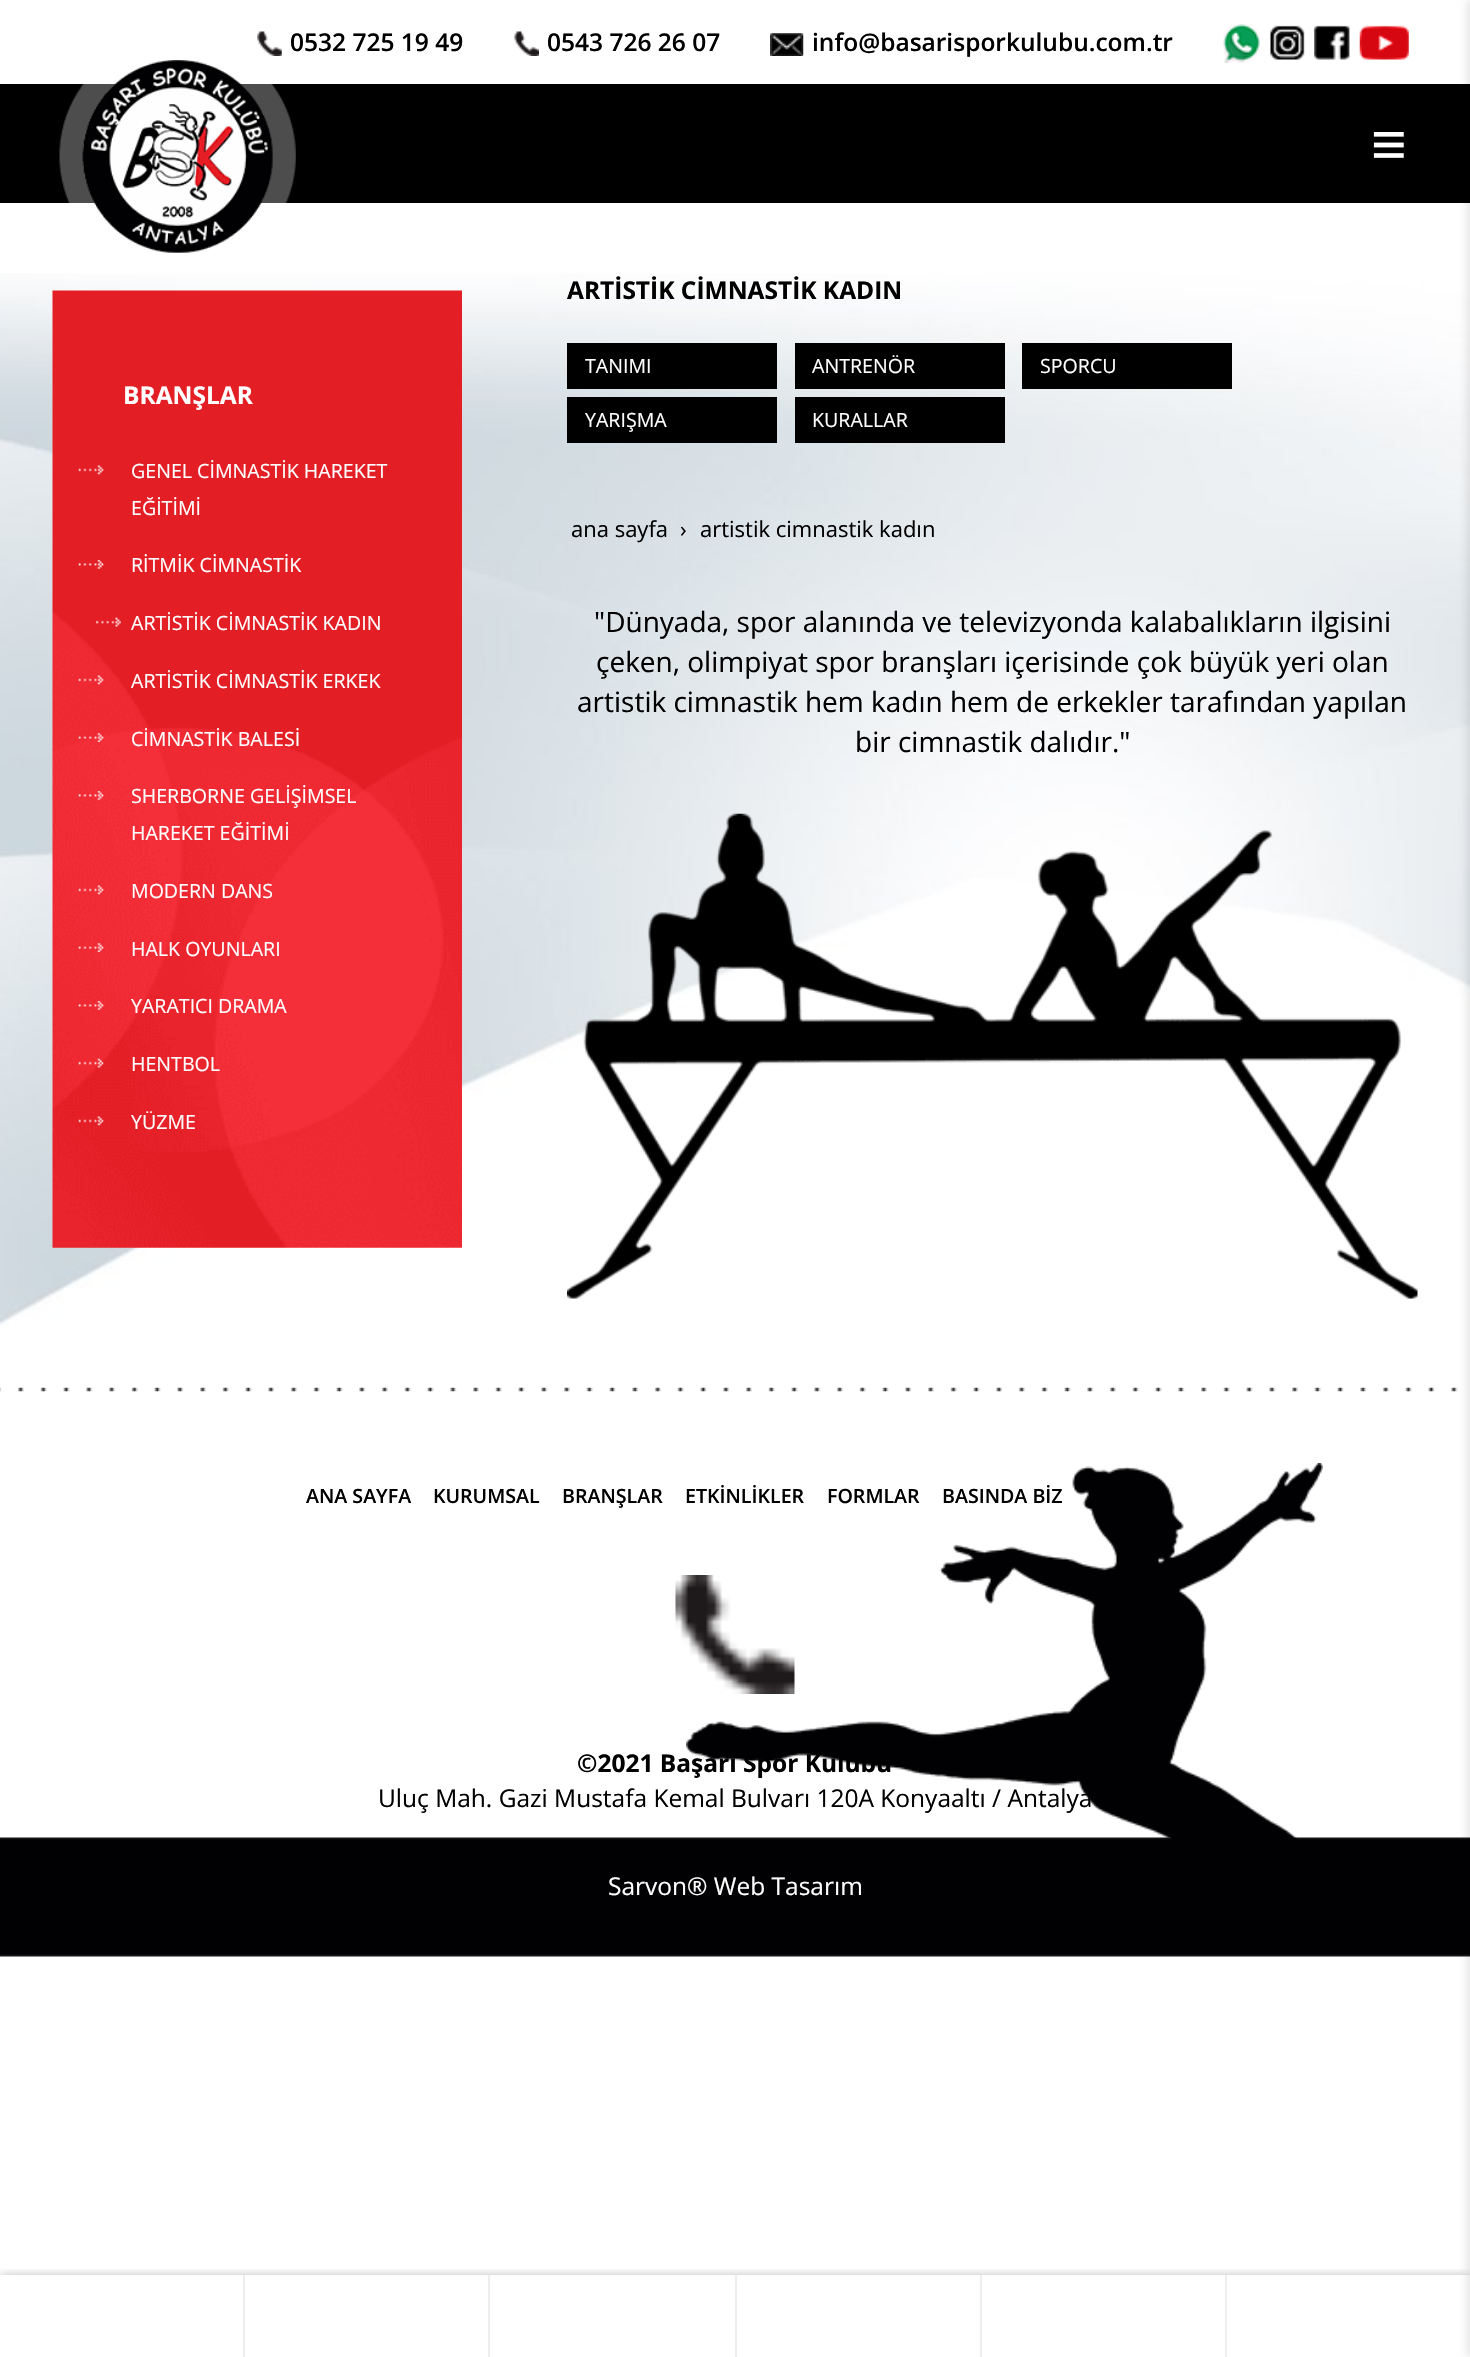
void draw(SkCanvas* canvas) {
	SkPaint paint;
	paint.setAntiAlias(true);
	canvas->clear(0xffffffff);
	canvas->drawImageRect(SkImages::DeferredFromEncodedData(SkData::MakeFromFileName("img1.png")), SkRect::MakeXYWH(0, 273, 1470, 1053), SkSamplingOptions());
	canvas->drawImageRect(SkImages::DeferredFromEncodedData(SkData::MakeFromFileName("img2.png")), SkRect::MakeXYWH(257, 31, 25, 25), SkSamplingOptions());
	SkFont f1(fontMgr->matchFamilyStyle("Open Sans", SkFontStyle(600, SkFontStyle::kNormal_Width, SkFontStyle::kUpright_Slant)), 24.5);
	f1.setSubpixel(true);
	paint.setColor(0xff000000);
	canvas->drawString("0532 725 19 49", 290, 51, f1, paint);
	canvas->drawImageRect(SkImages::DeferredFromEncodedData(SkData::MakeFromFileName("img3.png")), SkRect::MakeXYWH(514, 31, 25, 25), SkSamplingOptions());
	canvas->drawString("0543 726 26 07", 547, 51, f1, paint);
	canvas->drawImageRect(SkImages::DeferredFromEncodedData(SkData::MakeFromFileName("img4.png")), SkRect::MakeXYWH(770, 33, 34, 23), SkSamplingOptions());
	canvas->drawString("info@basarisporkulubu.com.tr", 812, 51, f1, paint);
	canvas->drawImageRect(SkImages::DeferredFromEncodedData(SkData::MakeFromFileName("img5.png")), SkRect::MakeXYWH(1223, 24, 37, 39), SkSamplingOptions());
	canvas->drawImageRect(SkImages::DeferredFromEncodedData(SkData::MakeFromFileName("img6.png")), SkRect::MakeXYWH(1270, 25, 35, 35), SkSamplingOptions());
	canvas->drawImageRect(SkImages::DeferredFromEncodedData(SkData::MakeFromFileName("img7.png")), SkRect::MakeXYWH(1314, 25, 36, 35), SkSamplingOptions());
	canvas->drawImageRect(SkImages::DeferredFromEncodedData(SkData::MakeFromFileName("img8.png")), SkRect::MakeXYWH(1359, 25, 50, 35), SkSamplingOptions());
	canvas->drawRect(SkRect::MakeXYWH(0, 84, 1470, 119), paint);
	canvas->drawImageRect(SkImages::DeferredFromEncodedData(SkData::MakeFromFileName("img9.png")), SkRect::MakeXYWH(59, 60, 237, 193), SkSamplingOptions());
	SkFont f2(fontMgr->matchFamilyStyle("Liberation Sans", SkFontStyle::Normal()), 61);
	f2.setSubpixel(true);
	paint.setColor(0xffffffff);
	canvas->drawString("≡", 1371, 165, f2, paint);
	canvas->drawImageRect(SkImages::DeferredFromEncodedData(SkData::MakeFromFileName("img10.png")), SkRect::MakeXYWH(0, 1387, 1458, 5), SkSamplingOptions());
	canvas->drawImageRect(SkImages::DeferredFromEncodedData(SkData::MakeFromFileName("img11.png")), SkRect::MakeXYWH(52, 290, 410, 958), SkSamplingOptions());
	SkFont f3(fontMgr->matchFamilyStyle("Open Sans", SkFontStyle::Bold()), 24.5);
	f3.setSubpixel(true);
	canvas->drawString("BRANŞLAR", 123, 404, f3, paint);
	canvas->drawImageRect(SkImages::DeferredFromEncodedData(SkData::MakeFromFileName("img12.png")), SkRect::MakeXYWH(78, 465, 26, 10), SkSamplingOptions());
	SkFont f4(fontMgr->matchFamilyStyle("Open Sans", SkFontStyle::Normal()), 19.6);
	f4.setSubpixel(true);
	canvas->drawString("GENEL CİMNASTİK HAREKET", 131, 478, f4, paint);
	canvas->drawString("EĞİTİMİ", 131, 515, f4, paint);
	canvas->drawImageRect(SkImages::DeferredFromEncodedData(SkData::MakeFromFileName("img13.png")), SkRect::MakeXYWH(78, 560, 26, 9), SkSamplingOptions());
	canvas->drawString("RİTMİK CİMNASTİK", 131, 572, f4, paint);
	canvas->drawImageRect(SkImages::DeferredFromEncodedData(SkData::MakeFromFileName("img14.png")), SkRect::MakeXYWH(96, 617, 25, 10), SkSamplingOptions());
	canvas->drawString("ARTİSTİK CİMNASTİK KADIN", 131, 630, f4, paint);
	canvas->drawImageRect(SkImages::DeferredFromEncodedData(SkData::MakeFromFileName("img15.png")), SkRect::MakeXYWH(78, 675, 26, 10), SkSamplingOptions());
	canvas->drawString("ARTİSTİK CİMNASTİK ERKEK", 131, 688, f4, paint);
	canvas->drawImageRect(SkImages::DeferredFromEncodedData(SkData::MakeFromFileName("img16.png")), SkRect::MakeXYWH(78, 733, 26, 9), SkSamplingOptions());
	canvas->drawString("CİMNASTİK BALESİ", 131, 746, f4, paint);
	canvas->drawImageRect(SkImages::DeferredFromEncodedData(SkData::MakeFromFileName("img17.png")), SkRect::MakeXYWH(78, 791, 26, 9), SkSamplingOptions());
	canvas->drawString("SHERBORNE GELİŞİMSEL", 131, 803, f4, paint);
	canvas->drawString("HAREKET EĞİTİMİ", 131, 840, f4, paint);
	canvas->drawImageRect(SkImages::DeferredFromEncodedData(SkData::MakeFromFileName("img18.png")), SkRect::MakeXYWH(78, 885, 26, 10), SkSamplingOptions());
	canvas->drawString("MODERN DANS", 131, 898, f4, paint);
	canvas->drawImageRect(SkImages::DeferredFromEncodedData(SkData::MakeFromFileName("img19.png")), SkRect::MakeXYWH(78, 943, 26, 9), SkSamplingOptions());
	canvas->drawString("HALK OYUNLARI", 131, 956, f4, paint);
	canvas->drawImageRect(SkImages::DeferredFromEncodedData(SkData::MakeFromFileName("img20.png")), SkRect::MakeXYWH(78, 1001, 26, 9), SkSamplingOptions());
	canvas->drawString("YARATICI DRAMA", 131, 1013, f4, paint);
	canvas->drawImageRect(SkImages::DeferredFromEncodedData(SkData::MakeFromFileName("img21.png")), SkRect::MakeXYWH(78, 1058, 26, 10), SkSamplingOptions());
	canvas->drawString("HENTBOL", 131, 1071, f4, paint);
	canvas->drawImageRect(SkImages::DeferredFromEncodedData(SkData::MakeFromFileName("img22.png")), SkRect::MakeXYWH(78, 1116, 26, 10), SkSamplingOptions());
	canvas->drawString("YÜZME", 131, 1129, f4, paint);
	paint.setColor(0xff000000);
	canvas->drawString("ARTİSTİK CİMNASTİK KADIN", 567, 299, f3, paint);
	canvas->drawRect(SkRect::MakeXYWH(567, 343, 210, 46), paint);
	paint.setColor(0xffffffff);
	canvas->drawString("TANIMI", 585, 373, f4, paint);
	paint.setColor(0xff000000);
	canvas->drawRect(SkRect::MakeXYWH(795, 343, 210, 46), paint);
	paint.setColor(0xffffffff);
	canvas->drawString("ANTRENÖR", 812, 373, f4, paint);
	paint.setColor(0xff000000);
	canvas->drawRect(SkRect::MakeXYWH(1022, 343, 210, 46), paint);
	paint.setColor(0xffffffff);
	canvas->drawString("SPORCU", 1040, 373, f4, paint);
	paint.setColor(0xff000000);
	canvas->drawRect(SkRect::MakeXYWH(567, 397, 210, 46), paint);
	paint.setColor(0xffffffff);
	canvas->drawString("YARIŞMA", 585, 427, f4, paint);
	paint.setColor(0xff000000);
	canvas->drawRect(SkRect::MakeXYWH(795, 397, 210, 46), paint);
	paint.setColor(0xffffffff);
	canvas->drawString("KURALLAR", 812, 427, f4, paint);
	SkFont f5(fontMgr->matchFamilyStyle("Open Sans", SkFontStyle::Normal()), 22);
	f5.setSubpixel(true);
	paint.setColor(0xff000000);
	canvas->drawString("ana sayfa", 571, 537, f5, paint);
	canvas->drawString("›", 680, 537, f5, paint);
	canvas->drawString("artistik cimnastik kadın", 700, 537, f5, paint);
	SkFont f6(fontMgr->matchFamilyStyle("Open Sans", SkFontStyle::Normal()), 28);
	f6.setSubpixel(true);
	canvas->drawString("\"Dünyada, spor alanında ve televizyonda kalabalıkların ilgisini", 594, 632, f6, paint);
	canvas->drawString("çeken, olimpiyat spor branşları içerisinde çok büyük yeri olan", 596, 672, f6, paint);
	canvas->drawString("artistik cimnastik hem kadın hem de erkekler tarafından yapılan", 577, 712, f6, paint);
	canvas->drawString("bir cimnastik dalıdır.\"", 855, 752, f6, paint);
	canvas->drawImageRect(SkImages::DeferredFromEncodedData(SkData::MakeFromFileName("img23.png")), SkRect::MakeXYWH(567, 813, 851, 486), SkSamplingOptions());
	canvas->drawImageRect(SkImages::DeferredFromEncodedData(SkData::MakeFromFileName("img24.png")), SkRect::MakeXYWH(0, 1837, 1470, 120), SkSamplingOptions());
	canvas->drawImageRect(SkImages::DeferredFromEncodedData(SkData::MakeFromFileName("img25.png")), SkRect::MakeXYWH(686, 1463, 637, 377), SkSamplingOptions());
	SkFont f7(fontMgr->matchFamilyStyle("Open Sans", SkFontStyle(600, SkFontStyle::kNormal_Width, SkFontStyle::kUpright_Slant)), 19.6);
	f7.setSubpixel(true);
	canvas->drawString("ANA SAYFA", 306, 1503, f7, paint);
	canvas->drawString("KURUMSAL", 433, 1503, f7, paint);
	canvas->drawString("BRANŞLAR", 562, 1503, f7, paint);
	canvas->drawString("ETKİNLİKLER", 685, 1503, f7, paint);
	canvas->drawString("FORMLAR", 827, 1503, f7, paint);
	canvas->drawString("BASINDA BİZ", 942, 1503, f7, paint);
	canvas->drawImageRect(SkImages::DeferredFromEncodedData(SkData::MakeFromFileName("img26.png")), SkRect::MakeXYWH(675, 1575, 120, 119), SkSamplingOptions());
	canvas->drawString("©2021 Başarı Spor Kulübü", 577, 1772, f3, paint);
	SkFont f8(fontMgr->matchFamilyStyle("Open Sans", SkFontStyle::Normal()), 24.5);
	f8.setSubpixel(true);
	canvas->drawString("Uluç Mah. Gazi Mustafa Kemal Bulvarı 120A Konyaaltı / Antalya", 378, 1807, f8, paint);
	canvas->save();
	canvas->clipRect(SkRect::MakeXYWH(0, 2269, 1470, 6));
	paint.setColor(0x40000000);
	paint.setMaskFilter(SkMaskFilter::MakeBlur(kNormal_SkBlurStyle, 4.5));
	canvas->drawRect(SkRect::MakeXYWH(0, 2275, 1470, 82), paint);
	paint.setMaskFilter(nullptr);
	canvas->restore();
	paint.setColor(0xffeeeeee);
	canvas->drawRect(SkRect::MakeXYWH(243, 2275, 2, 82), paint);
	canvas->drawRect(SkRect::MakeXYWH(488, 2275, 2, 82), paint);
	canvas->drawRect(SkRect::MakeXYWH(735, 2275, 2, 82), paint);
	canvas->drawRect(SkRect::MakeXYWH(980, 2275, 2, 82), paint);
	canvas->drawRect(SkRect::MakeXYWH(1225, 2275, 2, 82), paint);
	paint.setColor(0xffffffff);
	canvas->drawString("Sarvon® Web Tasarım", 608, 1895, f8, paint);
	paint.setColor(0x1a000000);
	paint.setMaskFilter(SkMaskFilter::MakeBlur(kNormal_SkBlurStyle, 4.5));
	canvas->drawRect(SkRect::MakeXYWH(1467, 0, 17, 2357), paint);
	paint.setMaskFilter(nullptr);
}
